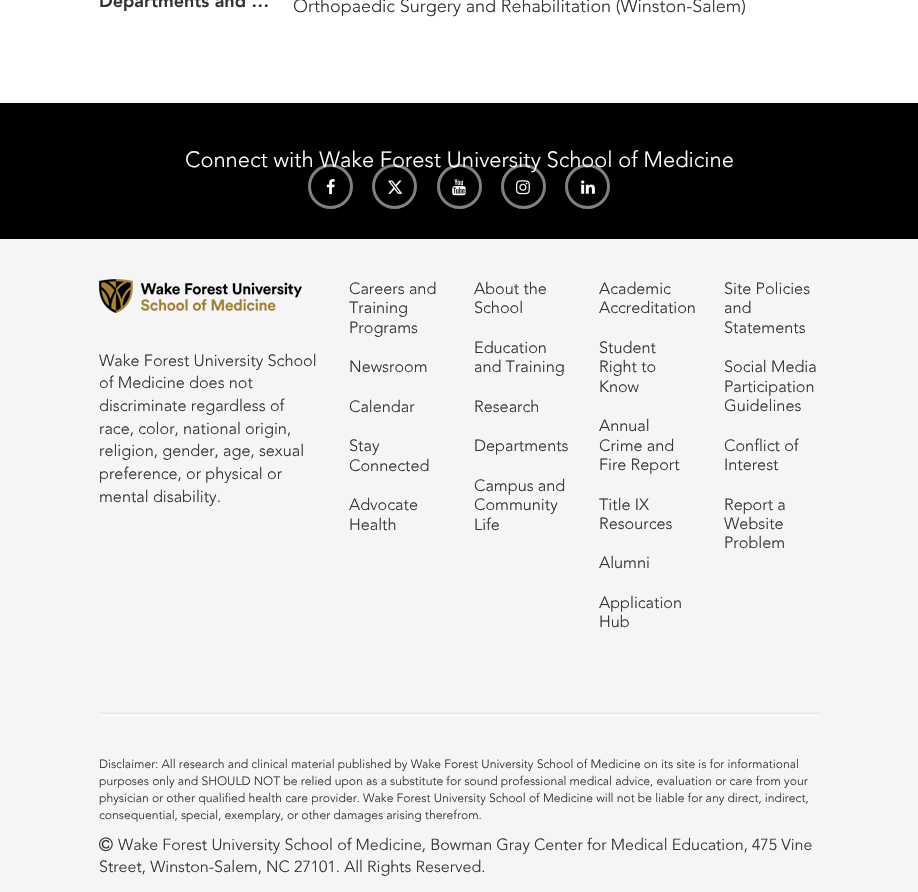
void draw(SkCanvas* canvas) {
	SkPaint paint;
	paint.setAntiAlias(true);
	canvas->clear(0xfff5f5f5);
	paint.setColor(0xffffffff);
	canvas->drawRect(SkRect::MakeXYWH(0, 0, 918, 100), paint);
	SkFont f1(fontMgr->matchFamilyStyle("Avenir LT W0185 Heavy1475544", SkFontStyle(900, SkFontStyle::kNormal_Width, SkFontStyle::kUpright_Slant)), 18);
	f1.setSubpixel(true);
	paint.setColor(0xff333333);
	canvas->drawString("Departments and …", 99, 7, f1, paint);
	SkFont f2(fontMgr->matchFamilyStyle("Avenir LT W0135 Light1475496", SkFontStyle(300, SkFontStyle::kNormal_Width, SkFontStyle::kUpright_Slant)), 18);
	f2.setSubpixel(true);
	canvas->drawString("Orthopaedic Surgery and Rehabilitation (Winston-Salem)", 293, 12, f2, paint);
	paint.setColor(0xff000000);
	canvas->drawRect(SkRect::MakeXYWH(0, 103, 918, 136), paint);
	paint.setStroke(true);
	paint.setStrokeWidth(3);
	paint.setColor(0xff808080);
	canvas->drawCircle(330.5, 186.5, 21, paint);
	canvas->drawCircle(394.5, 186.5, 21, paint);
	canvas->drawCircle(459.5, 186.5, 21, paint);
	canvas->drawCircle(523.5, 186.5, 21, paint);
	canvas->drawCircle(587.5, 186.5, 21, paint);
	SkFont f3(fontMgr->matchFamilyStyle("Avenir LT W0135 Light1475496", SkFontStyle(300, SkFontStyle::kNormal_Width, SkFontStyle::kUpright_Slant)), 21.9);
	f3.setSubpixel(true);
	paint.setStroke(false);
	paint.setColor(0xffffffff);
	canvas->drawString("Connect with Wake Forest University School of Medicine", 185, 167, f3, paint);
	canvas->drawImageRect(SkImages::DeferredFromEncodedData(SkData::MakeFromFileName("img1.png")), SkRect::MakeXYWH(326, 179, 9, 16), SkSamplingOptions());
	canvas->drawImageRect(SkImages::DeferredFromEncodedData(SkData::MakeFromFileName("img2.png")), SkRect::MakeXYWH(388, 180, 15, 14), SkSamplingOptions());
	canvas->drawImageRect(SkImages::DeferredFromEncodedData(SkData::MakeFromFileName("img3.png")), SkRect::MakeXYWH(452, 179, 14, 17), SkSamplingOptions());
	canvas->drawImageRect(SkImages::DeferredFromEncodedData(SkData::MakeFromFileName("img4.png")), SkRect::MakeXYWH(516, 180, 14, 15), SkSamplingOptions());
	canvas->drawImageRect(SkImages::DeferredFromEncodedData(SkData::MakeFromFileName("img5.png")), SkRect::MakeXYWH(581, 180, 14, 14), SkSamplingOptions());
	canvas->drawImageRect(SkImages::DeferredFromEncodedData(SkData::MakeFromFileName("img6.png")), SkRect::MakeXYWH(99, 279, 203, 34), SkSamplingOptions());
	SkFont f4(fontMgr->matchFamilyStyle("Avenir LT W0135 Light1475496", SkFontStyle(300, SkFontStyle::kNormal_Width, SkFontStyle::kUpright_Slant)), 16.25);
	f4.setSubpixel(true);
	paint.setColor(0xff333333);
	canvas->drawString("Wake Forest University School", 99, 366, f4, paint);
	canvas->drawString("of Medicine does not", 99, 388, f4, paint);
	canvas->drawString("discriminate regardless of", 99, 411, f4, paint);
	canvas->drawString("race, color, national origin,", 99, 434, f4, paint);
	canvas->drawString("religion, gender, age, sexual", 99, 456, f4, paint);
	canvas->drawString("preference, or physical or", 99, 479, f4, paint);
	canvas->drawString("mental disability.", 99, 502, f4, paint);
	canvas->drawString("Careers and", 349, 294, f4, paint);
	canvas->drawString("Training", 349, 313, f4, paint);
	canvas->drawString("Programs", 349, 333, f4, paint);
	canvas->drawString("Newsroom", 349, 372, f4, paint);
	canvas->drawString("Calendar", 349, 412, f4, paint);
	canvas->drawString("Stay", 349, 451, f4, paint);
	canvas->drawString("Connected", 349, 471, f4, paint);
	canvas->drawString("Advocate", 349, 510, f4, paint);
	canvas->drawString("Health", 349, 530, f4, paint);
	canvas->drawString("About the", 474, 294, f4, paint);
	canvas->drawString("School", 474, 313, f4, paint);
	canvas->drawString("Education", 474, 353, f4, paint);
	canvas->drawString("and Training", 474, 372, f4, paint);
	canvas->drawString("Research", 474, 412, f4, paint);
	canvas->drawString("Departments", 474, 451, f4, paint);
	canvas->drawString("Campus and", 474, 491, f4, paint);
	canvas->drawString("Community", 474, 510, f4, paint);
	canvas->drawString("Life", 474, 530, f4, paint);
	canvas->drawString("Academic", 599, 294, f4, paint);
	canvas->drawString("Accreditation", 599, 313, f4, paint);
	canvas->drawString("Student", 599, 353, f4, paint);
	canvas->drawString("Right to", 599, 372, f4, paint);
	canvas->drawString("Know", 599, 392, f4, paint);
	canvas->drawString("Annual", 599, 431, f4, paint);
	canvas->drawString("Crime and", 599, 451, f4, paint);
	canvas->drawString("Fire Report", 599, 470, f4, paint);
	canvas->drawString("Title IX", 599, 510, f4, paint);
	canvas->drawString("Resources", 599, 529, f4, paint);
	canvas->drawString("Alumni", 599, 568, f4, paint);
	canvas->drawString("Application", 599, 608, f4, paint);
	canvas->drawString("Hub", 599, 627, f4, paint);
	canvas->drawString("Site Policies", 724, 294, f4, paint);
	canvas->drawString("and", 724, 313, f4, paint);
	canvas->drawString("Statements", 724, 333, f4, paint);
	canvas->drawString("Social Media", 724, 372, f4, paint);
	canvas->drawString("Participation", 724, 392, f4, paint);
	canvas->drawString("Guidelines", 724, 411, f4, paint);
	canvas->drawString("Conflict of", 724, 451, f4, paint);
	canvas->drawString("Interest", 724, 470, f4, paint);
	canvas->drawString("Report a", 724, 510, f4, paint);
	canvas->drawString("Website", 724, 529, f4, paint);
	canvas->drawString("Problem", 724, 548, f4, paint);
	paint.setColor(0xffebebeb);
	canvas->drawRect(SkRect::MakeXYWH(99, 712, 720, 2), paint);
	paint.setColor(0xffffffff);
	canvas->drawRect(SkRect::MakeXYWH(99, 715, 720, 1), paint);
	SkFont f5(fontMgr->matchFamilyStyle("Avenir LT W0135 Light1475496", SkFontStyle(300, SkFontStyle::kNormal_Width, SkFontStyle::kUpright_Slant)), 12.15);
	f5.setSubpixel(true);
	paint.setColor(0xff333333);
	canvas->drawString("Disclaimer: All research and clinical material published by Wake Forest University School of Medicine on its site is for informational", 99, 768, f5, paint);
	canvas->drawString("purposes only and SHOULD NOT be relied upon as a substitute for sound professional medical advice, evaluation or care from your", 99, 785, f5, paint);
	canvas->drawString("physician or other qualified health care provider. Wake Forest University School of Medicine will not be liable for any direct, indirect,", 99, 802, f5, paint);
	canvas->drawString("consequential, special, exemplary, or other damages arising therefrom.", 99, 819, f5, paint);
	canvas->drawImageRect(SkImages::DeferredFromEncodedData(SkData::MakeFromFileName("img7.png")), SkRect::MakeXYWH(99, 837, 14, 15), SkSamplingOptions());
	SkFont f6(fontMgr->matchFamilyStyle("Avenir LT W0135 Light1475496", SkFontStyle(300, SkFontStyle::kNormal_Width, SkFontStyle::kUpright_Slant)), 16.05);
	f6.setSubpixel(true);
	canvas->drawString("Wake Forest University School of Medicine, Bowman Gray Center for Medical Education, 475 Vine", 118, 850, f6, paint);
	canvas->drawString("Street, Winston-Salem, NC 27101. All Rights Reserved.", 99, 872, f6, paint);
}
